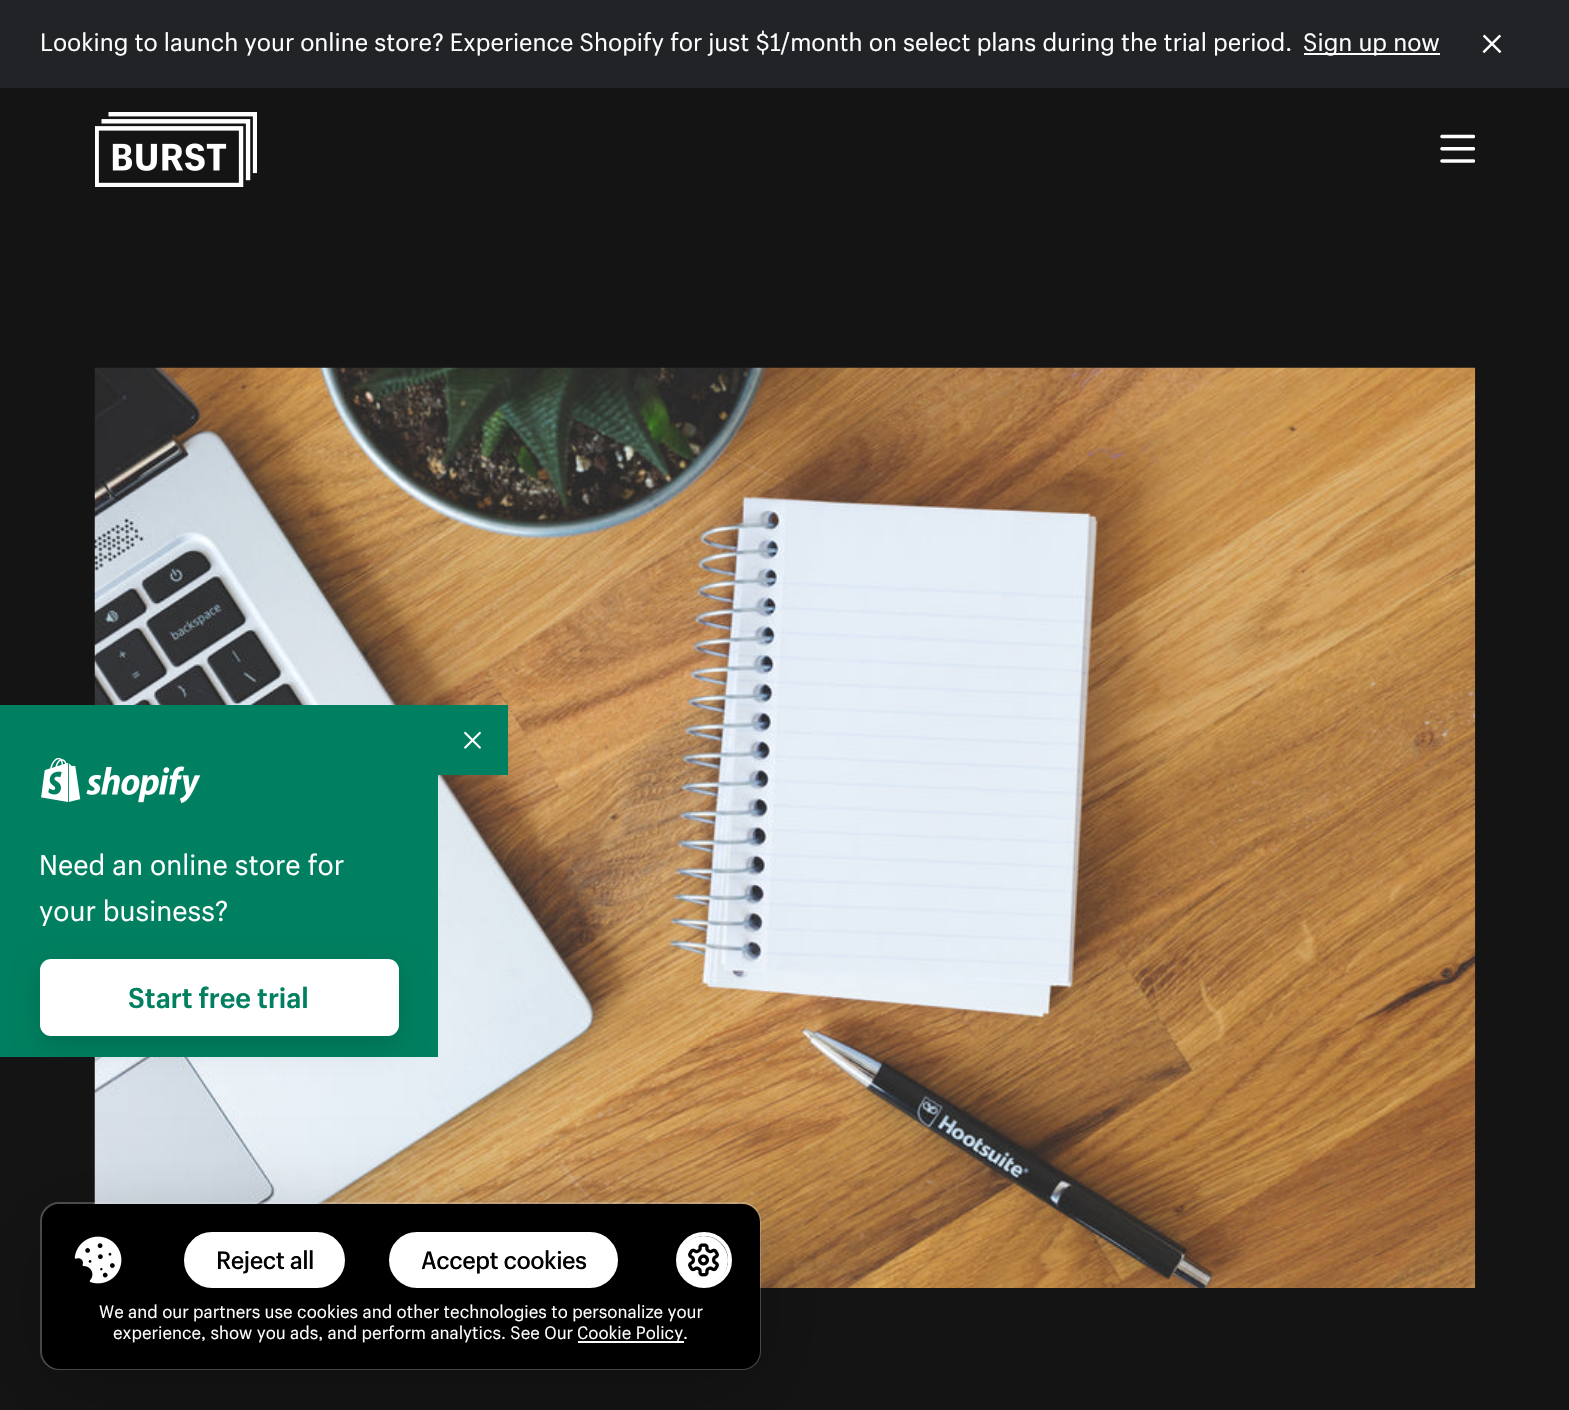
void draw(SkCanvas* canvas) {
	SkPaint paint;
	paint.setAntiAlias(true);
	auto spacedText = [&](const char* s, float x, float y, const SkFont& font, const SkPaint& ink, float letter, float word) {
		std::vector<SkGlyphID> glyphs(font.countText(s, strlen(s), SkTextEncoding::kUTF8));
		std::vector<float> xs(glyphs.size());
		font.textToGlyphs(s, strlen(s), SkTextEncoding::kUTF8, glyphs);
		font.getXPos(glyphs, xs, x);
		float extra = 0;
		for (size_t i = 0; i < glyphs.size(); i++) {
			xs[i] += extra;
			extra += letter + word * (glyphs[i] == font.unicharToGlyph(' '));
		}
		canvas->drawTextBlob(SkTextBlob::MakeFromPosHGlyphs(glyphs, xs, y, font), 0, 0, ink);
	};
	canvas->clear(0xff141414);
	paint.setColor(0xff212326);
	canvas->drawRect(SkRect::MakeXYWH(0, 0, 1569, 88), paint);
	SkFont f1(fontMgr->matchFamilyStyle("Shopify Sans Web", SkFontStyle::Normal()), 24.5);
	f1.setSubpixel(true);
	paint.setColor(0xffffffff);
	canvas->drawString("Looking to launch your online store? Experience Shopify for just $1/month on select plans during the trial period.", 40, 51, f1, paint);
	canvas->drawRect(SkRect::MakeXYWH(1304, 53, 136, 2), paint);
	canvas->drawString("Sign up now", 1303, 51, f1, paint);
	canvas->drawImageRect(SkImages::DeferredFromEncodedData(SkData::MakeFromFileName("img1.png")), SkRect::MakeXYWH(1482, 34, 20, 20), SkSamplingOptions());
	canvas->drawImageRect(SkImages::DeferredFromEncodedData(SkData::MakeFromFileName("img2.png")), SkRect::MakeXYWH(95, 112, 162, 75), SkSamplingOptions());
	canvas->drawImageRect(SkImages::DeferredFromEncodedData(SkData::MakeFromFileName("img3.png")), SkRect::MakeXYWH(1440, 134, 35, 29), SkSamplingOptions());
	canvas->drawImageRect(SkImages::DeferredFromEncodedData(SkData::MakeFromFileName("img4.png")), SkRect::MakeXYWH(94, 367, 1382, 921), SkSamplingOptions());
	paint.setColor(0xff008060);
	canvas->drawRect(SkRect::MakeXYWH(438, 705, 70, 70), paint);
	canvas->drawImageRect(SkImages::DeferredFromEncodedData(SkData::MakeFromFileName("img5.png")), SkRect::MakeXYWH(464, 731, 17, 18), SkSamplingOptions());
	canvas->drawRect(SkRect::MakeXYWH(0, 705, 438, 352), paint);
	canvas->drawImageRect(SkImages::DeferredFromEncodedData(SkData::MakeFromFileName("img6.png")), SkRect::MakeXYWH(41, 758, 160, 45), SkSamplingOptions());
	SkFont f2(fontMgr->matchFamilyStyle("Shopify Sans Web", SkFontStyle::Normal()), 28);
	f2.setSubpixel(true);
	paint.setColor(0xffffffff);
	canvas->drawString("Need an online store for", 39, 875, f2, paint);
	canvas->drawString("your business?", 39, 921, f2, paint);
	paint.setColor(0x26000000);
	paint.setMaskFilter(SkMaskFilter::MakeBlur(kNormal_SkBlurStyle, 13));
	canvas->drawRoundRect(SkRect::MakeXYWH(40, 968, 359, 77), 11, 11, paint);
	paint.setMaskFilter(nullptr);
	paint.setColor(0xffffffff);
	canvas->drawRoundRect(SkRect::MakeXYWH(40, 959, 359, 77), 11, 11, paint);
	SkFont f3(fontMgr->matchFamilyStyle("Shopify Sans Web", SkFontStyle::Bold()), 28);
	f3.setSubpixel(true);
	paint.setColor(0xff008060);
	canvas->drawString("Start free trial", 128, 1008, f3, paint);
	paint.setStroke(true);
	paint.setStrokeWidth(2);
	paint.setColor(0x40ffffff);
	canvas->drawRoundRect(SkRect::MakeXYWH(41, 1203, 719, 166), 18, 18, paint);
	paint.setStroke(false);
	paint.setColor(0x40000000);
	paint.setMaskFilter(SkMaskFilter::MakeBlur(kNormal_SkBlurStyle, 44));
	canvas->drawRoundRect(SkRect::MakeXYWH(42, 1222, 718, 164), 18, 18, paint);
	paint.setMaskFilter(nullptr);
	paint.setColor(0xff000000);
	canvas->drawRoundRect(SkRect::MakeXYWH(42, 1204, 718, 165), 18, 18, paint);
	canvas->drawImageRect(SkImages::DeferredFromEncodedData(SkData::MakeFromFileName("img7.png")), SkRect::MakeXYWH(74, 1236, 48, 48), SkSamplingOptions());
	paint.setColor(0xffffffff);
	canvas->drawRoundRect(SkRect::MakeXYWH(186, 1234, 157, 52), 26, 26, paint);
	paint.setStroke(true);
	paint.setStrokeWidth(4);
	canvas->drawRoundRect(SkRect::MakeXYWH(186, 1234, 157, 52), 26, 26, paint);
	SkFont f4(fontMgr->matchFamilyStyle("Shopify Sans", SkFontStyle(500, SkFontStyle::kNormal_Width, SkFontStyle::kUpright_Slant)), 24.5);
	f4.setSubpixel(true);
	paint.setStroke(false);
	paint.setColor(0xff000000);
	spacedText("Reject all", 216, 1269, f4, paint, -0.5, 0);
	paint.setColor(0xffffffff);
	canvas->drawRoundRect(SkRect::MakeXYWH(391, 1234, 225, 52), 26, 26, paint);
	paint.setStroke(true);
	canvas->drawRoundRect(SkRect::MakeXYWH(391, 1234, 225, 52), 26, 26, paint);
	paint.setStroke(false);
	paint.setColor(0xff000000);
	spacedText("Accept cookies", 421, 1269, f4, paint, -0.5, 0);
	paint.setStroke(true);
	paint.setColor(0xffffffff);
	canvas->drawCircle(704, 1260, 26, paint);
	paint.setStroke(false);
	canvas->drawCircle(703.5, 1260.5, 24.5, paint);
	canvas->drawImageRect(SkImages::DeferredFromEncodedData(SkData::MakeFromFileName("img8.png")), SkRect::MakeXYWH(688, 1243, 31, 34), SkSamplingOptions());
	SkFont f5(fontMgr->matchFamilyStyle("Shopify Sans Web", SkFontStyle::Normal()), 17.5);
	f5.setSubpixel(true);
	canvas->drawString("We and our partners use cookies and other technologies to personalize your", 99, 1318, f5, paint);
	canvas->drawString("experience, show you ads, and perform analytics. See Our", 113, 1339, f5, paint);
	canvas->drawRect(SkRect::MakeXYWH(578, 1341, 106, 2), paint);
	canvas->drawString("Cookie Policy.", 577, 1339, f5, paint);
}
